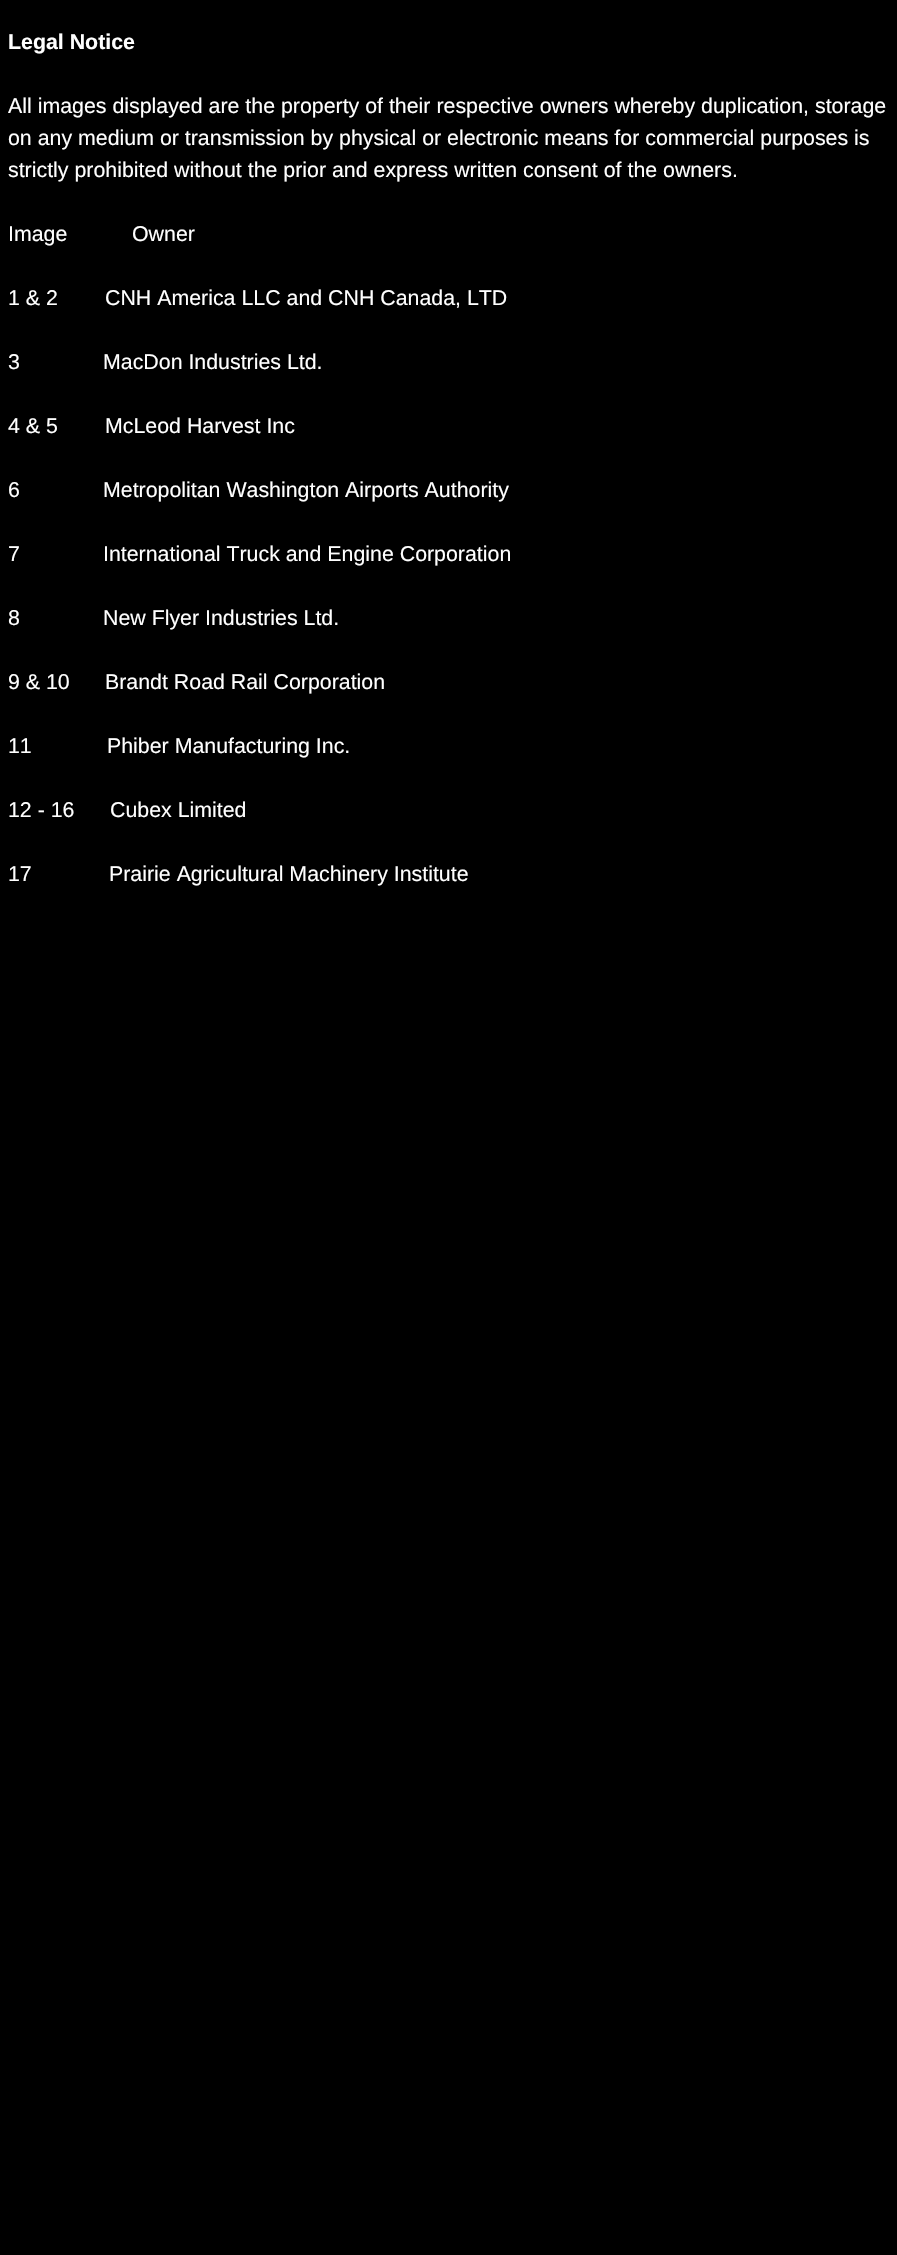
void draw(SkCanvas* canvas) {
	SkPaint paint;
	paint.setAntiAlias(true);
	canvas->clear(0xff000000);
	SkFont f1(fontMgr->matchFamilyStyle("Liberation Sans", SkFontStyle::Bold()), 21.35);
	f1.setSubpixel(true);
	paint.setColor(0xffffffff);
	canvas->drawString("Legal Notice", 8, 49, f1, paint);
	SkFont f2(fontMgr->matchFamilyStyle("Liberation Sans", SkFontStyle::Normal()), 21.35);
	f2.setSubpixel(true);
	canvas->drawString("All images displayed are the property of their respective owners whereby duplication, storage", 8, 113, f2, paint);
	canvas->drawString("on any medium or transmission by physical or electronic means for commercial purposes is", 8, 145, f2, paint);
	canvas->drawString("strictly prohibited without the prior and express written consent of the owners.", 8, 177, f2, paint);
	canvas->drawString("Image", 8, 241, f2, paint);
	canvas->drawString("Owner", 132, 241, f2, paint);
	canvas->drawString("1 & 2", 8, 305, f2, paint);
	canvas->drawString("CNH America LLC and CNH Canada, LTD", 105, 305, f2, paint);
	canvas->drawString("3", 8, 369, f2, paint);
	canvas->drawString("MacDon Industries Ltd.", 103, 369, f2, paint);
	canvas->drawString("4 & 5", 8, 433, f2, paint);
	canvas->drawString("McLeod Harvest Inc", 105, 433, f2, paint);
	canvas->drawString("6", 8, 497, f2, paint);
	canvas->drawString("Metropolitan Washington Airports Authority", 103, 497, f2, paint);
	canvas->drawString("7", 8, 561, f2, paint);
	canvas->drawString("International Truck and Engine Corporation", 103, 561, f2, paint);
	canvas->drawString("8", 8, 625, f2, paint);
	canvas->drawString("New Flyer Industries Ltd.", 103, 625, f2, paint);
	canvas->drawString("9 & 10", 8, 689, f2, paint);
	canvas->drawString("Brandt Road Rail Corporation", 105, 689, f2, paint);
	canvas->drawString("11", 8, 753, f2, paint);
	canvas->drawString("Phiber Manufacturing Inc.", 107, 753, f2, paint);
	canvas->drawString("12 - 16", 8, 817, f2, paint);
	canvas->drawString("Cubex Limited", 110, 817, f2, paint);
	canvas->drawString("17", 8, 881, f2, paint);
	canvas->drawString("Prairie Agricultural Machinery Institute", 109, 881, f2, paint);
}
